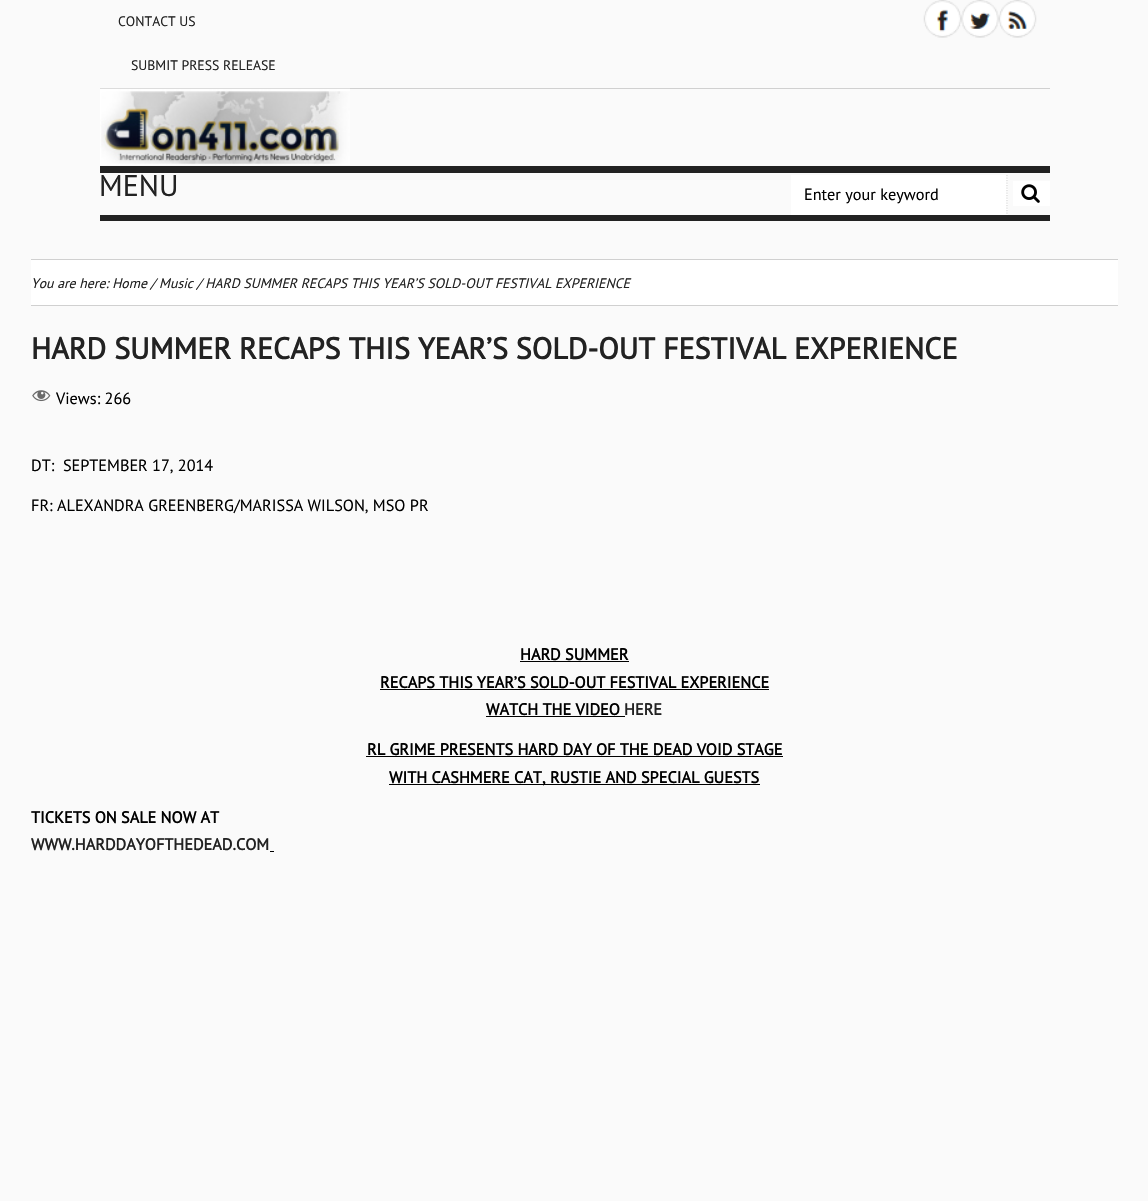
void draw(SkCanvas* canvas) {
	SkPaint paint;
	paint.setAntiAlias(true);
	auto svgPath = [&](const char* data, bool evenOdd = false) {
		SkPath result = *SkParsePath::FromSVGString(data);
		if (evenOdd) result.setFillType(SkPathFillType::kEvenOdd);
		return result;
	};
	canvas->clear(0xfffafafa);
	paint.setColor(0xffd0d0d0);
	canvas->drawRect(SkRect::MakeXYWH(100, 88, 950, 1), paint);
	SkFont f1(fontMgr->matchFamilyStyle("PT Sans", SkFontStyle::Normal()), 13.75);
	f1.setSubpixel(true);
	paint.setColor(0xff222222);
	canvas->drawString("CONTACT US", 118, 26, f1, paint);
	canvas->drawString("SUBMIT PRESS RELEASE", 131, 70, f1, paint);
	canvas->drawImageRect(SkImages::DeferredFromEncodedData(SkData::MakeFromFileName("img1.png")), SkRect::MakeXYWH(923, 0, 39, 38), SkSamplingOptions());
	canvas->drawImageRect(SkImages::DeferredFromEncodedData(SkData::MakeFromFileName("img2.png")), SkRect::MakeXYWH(961, 0, 38, 38), SkSamplingOptions());
	canvas->drawImageRect(SkImages::DeferredFromEncodedData(SkData::MakeFromFileName("img3.png")), SkRect::MakeXYWH(999, 0, 38, 38), SkSamplingOptions());
	canvas->drawImageRect(SkImages::DeferredFromEncodedData(SkData::MakeFromFileName("img4.png")), SkRect::MakeXYWH(100, 88, 250, 77), SkSamplingOptions());
	canvas->drawRect(SkRect::MakeXYWH(100, 166, 950, 7), paint);
	canvas->drawRect(SkRect::MakeXYWH(100, 215, 950, 6), paint);
	SkFont f2(fontMgr->matchFamilyStyle("PT Sans", SkFontStyle::Normal()), 30);
	f2.setSubpixel(true);
	canvas->drawString("MENU", 99, 196, f2, paint);
	paint.setColor(0xffffffff);
	canvas->drawRect(SkRect::MakeXYWH(791, 175, 217, 40), paint);
	paint.setStroke(true);
	paint.setStrokeWidth(1.2);
	paint.setColor(0xffd7d7d7);
	paint.setPathEffect(SkDashPathEffect::Make({{1.25f, 1.25f}}, 0));
	canvas->drawPath(svgPath("M1007 175V215"), paint);
	paint.setPathEffect(nullptr);
	SkFont f3(fontMgr->matchFamilyStyle("PT Sans", SkFontStyle::Normal()), 16.25);
	f3.setSubpixel(true);
	paint.setStroke(false);
	paint.setColor(0xff000000);
	canvas->drawString("Enter your keyword", 804, 200, f3, paint);
	paint.setColor(0xffffffff);
	canvas->drawRect(SkRect::MakeXYWH(1013, 181, 37, 25), paint);
	canvas->drawImageRect(SkImages::DeferredFromEncodedData(SkData::MakeFromFileName("img5.png")), SkRect::MakeXYWH(1021, 184, 19, 19), SkSamplingOptions());
	canvas->drawRect(SkRect::MakeXYWH(31, 260, 1087, 45), paint);
	paint.setColor(0xffd0d0d0);
	canvas->drawRect(SkRect::MakeXYWH(31, 259, 1087, 1), paint);
	canvas->drawRect(SkRect::MakeXYWH(31, 305, 1087, 1), paint);
	SkFont f4(fontMgr->matchFamilyStyle("PT Sans", SkFontStyle::Italic()), 13.75);
	f4.setSubpixel(true);
	paint.setColor(0xff222222);
	canvas->drawString("You are here: Home / Music / HARD SUMMER RECAPS THIS YEAR’S SOLD-OUT FESTIVAL EXPERIENCE", 31, 288, f4, paint);
	SkFont f5(fontMgr->matchFamilyStyle("PT Sans", SkFontStyle::Bold()), 30);
	f5.setSubpixel(true);
	canvas->drawString("HARD SUMMER RECAPS THIS YEAR’S SOLD-OUT FESTIVAL EXPERIENCE", 31, 359, f5, paint);
	canvas->drawImageRect(SkImages::DeferredFromEncodedData(SkData::MakeFromFileName("img6.png")), SkRect::MakeXYWH(32, 390, 19, 12), SkSamplingOptions());
	paint.setColor(0xff000000);
	canvas->drawString("Views: 266", 56, 404, f3, paint);
	canvas->drawString("DT:  SEPTEMBER 17, 2014", 31, 471, f3, paint);
	canvas->drawString("FR: ALEXANDRA GREENBERG/MARISSA WILSON, MSO PR", 31, 511, f3, paint);
	SkFont f6(fontMgr->matchFamilyStyle("PT Sans", SkFontStyle::Bold()), 16.25);
	f6.setSubpixel(true);
	canvas->drawString("HARD SUMMER", 520, 660, f6, paint);
	canvas->drawRect(SkRect::MakeXYWH(520, 661, 109, 1), paint);
	canvas->drawString("RECAPS THIS YEAR’S SOLD-OUT FESTIVAL EXPERIENCE", 380, 688, f6, paint);
	canvas->drawRect(SkRect::MakeXYWH(380, 689, 389, 1), paint);
	canvas->drawString("WATCH THE VIDEO", 486, 715, f6, paint);
	canvas->drawRect(SkRect::MakeXYWH(486, 716, 139, 1), paint);
	paint.setColor(0xff222222);
	canvas->drawString("HERE", 624, 715, f6, paint);
	paint.setColor(0xff000000);
	canvas->drawString("RL GRIME PRESENTS HARD DAY OF THE DEAD VOID STAGE", 367, 755, f6, paint);
	canvas->drawRect(SkRect::MakeXYWH(366, 756, 417, 1), paint);
	canvas->drawRect(SkRect::MakeXYWH(389, 784, 371, 1), paint);
	canvas->drawString("WITH CASHMERE CAT, RUSTIE AND SPECIAL GUESTS", 389, 783, f6, paint);
	canvas->drawString("TICKETS ON SALE NOW AT", 31, 823, f6, paint);
	paint.setColor(0xff222222);
	canvas->drawString("WWW.HARDDAYOFTHEDEAD.COM", 31, 850, f6, paint);
	paint.setColor(0xff000000);
	canvas->drawRect(SkRect::MakeXYWH(270, 851, 4, 1), paint);
}
